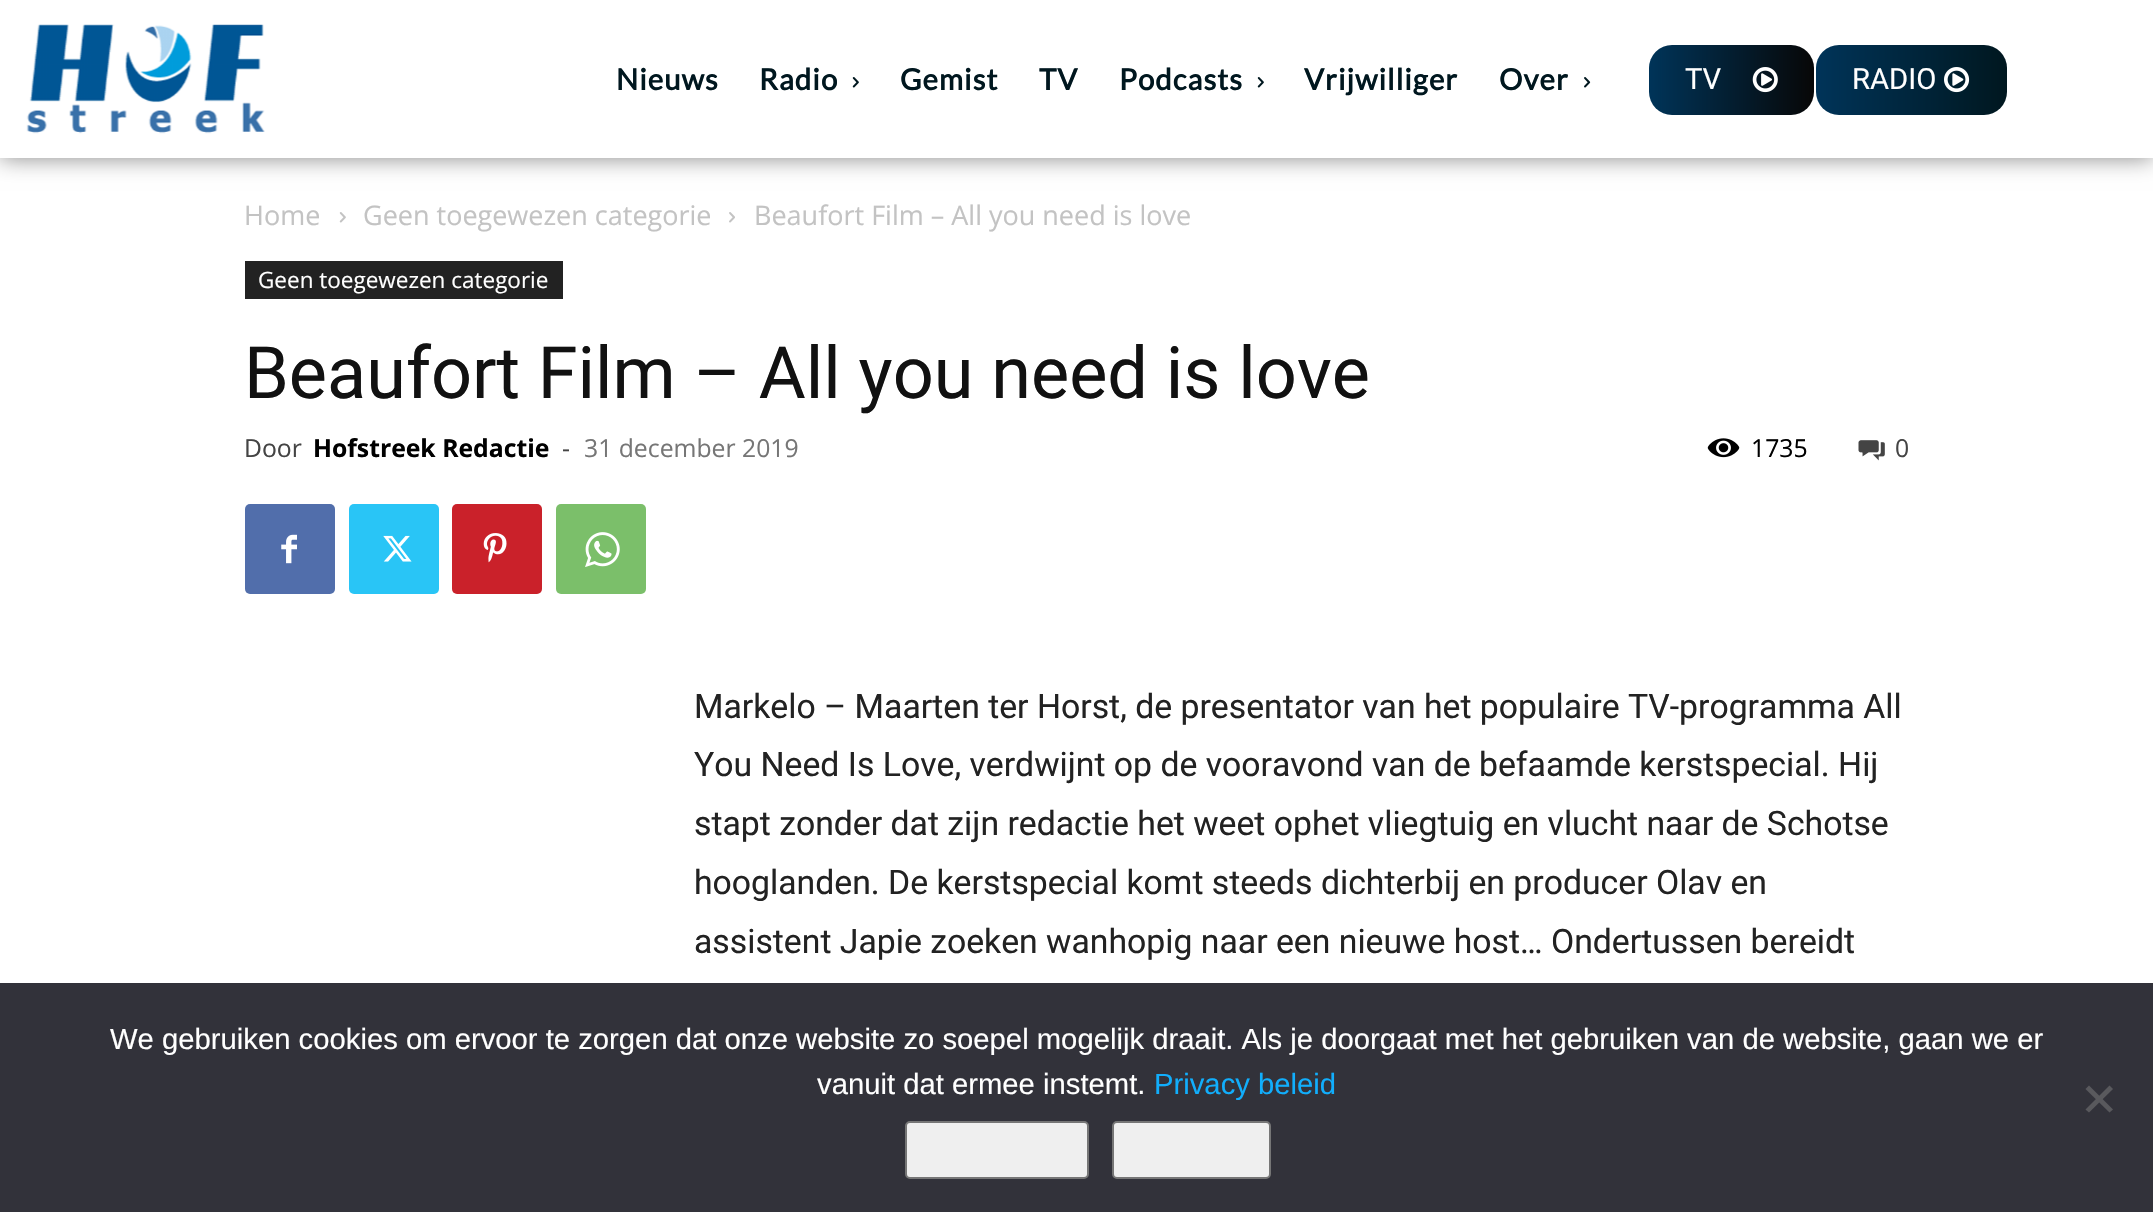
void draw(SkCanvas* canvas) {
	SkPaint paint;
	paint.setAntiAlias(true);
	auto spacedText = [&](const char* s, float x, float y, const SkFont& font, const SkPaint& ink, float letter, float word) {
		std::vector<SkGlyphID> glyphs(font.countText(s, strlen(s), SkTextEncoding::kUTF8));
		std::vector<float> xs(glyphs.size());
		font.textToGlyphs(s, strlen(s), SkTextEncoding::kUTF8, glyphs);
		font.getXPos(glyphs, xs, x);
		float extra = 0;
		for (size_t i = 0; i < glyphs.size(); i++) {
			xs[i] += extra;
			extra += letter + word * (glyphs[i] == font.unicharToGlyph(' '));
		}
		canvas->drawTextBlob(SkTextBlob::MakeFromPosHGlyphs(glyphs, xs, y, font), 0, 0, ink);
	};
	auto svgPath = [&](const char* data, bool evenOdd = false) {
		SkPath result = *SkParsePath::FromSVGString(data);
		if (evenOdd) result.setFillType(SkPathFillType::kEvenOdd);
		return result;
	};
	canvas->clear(0xffffffff);
	paint.setColor(0xff888888);
	paint.setMaskFilter(SkMaskFilter::MakeBlur(kNormal_SkBlurStyle, 11));
	canvas->drawRect(SkRect::MakeXYWH(0, 0, 2153, 158), paint);
	paint.setMaskFilter(nullptr);
	paint.setColor(0xffffffff);
	canvas->drawRect(SkRect::MakeXYWH(0, 0, 2153, 158), paint);
	canvas->drawImageRect(SkImages::DeferredFromEncodedData(SkData::MakeFromFileName("img1.png")), SkRect::MakeXYWH(26, 24, 239, 110), SkSamplingOptions());
	SkFont f1(fontMgr->matchFamilyStyle("Lato", SkFontStyle::Bold()), 29.25);
	f1.setSubpixel(true);
	paint.setColor(0xff00171f);
	spacedText("Nieuws", 616, 90, f1, paint, 1.1, 0);
	spacedText("Radio", 759, 90, f1, paint, 1.1, 0);
	canvas->drawImageRect(SkImages::DeferredFromEncodedData(SkData::MakeFromFileName("img2.png")), SkRect::MakeXYWH(852, 77, 7, 11), SkSamplingOptions());
	spacedText("Gemist", 900, 90, f1, paint, 1.1, 0);
	spacedText("TV", 1039, 90, f1, paint, 1.1, 0);
	spacedText("Podcasts", 1119, 90, f1, paint, 1.1, 0);
	canvas->drawImageRect(SkImages::DeferredFromEncodedData(SkData::MakeFromFileName("img2.png")), SkRect::MakeXYWH(1257, 77, 7, 11), SkSamplingOptions());
	spacedText("Vrijwilliger", 1304, 90, f1, paint, 1.1, 0);
	spacedText("Over", 1499, 90, f1, paint, 1.1, 0);
	canvas->drawImageRect(SkImages::DeferredFromEncodedData(SkData::MakeFromFileName("img3.png")), SkRect::MakeXYWH(1584, 77, 7, 11), SkSamplingOptions());
	{
		const SkColor colors[] = {0xff070707, 0xff003459};
		const float stops[] = {0, 1};
		const SkPoint ends[] = {{1814, 80}, {1649, 80}};
		paint.setShader(SkGradientShader::MakeLinear(ends, colors, stops, 2, SkTileMode::kClamp));
		paint.setAlpha(255);
	}
	canvas->drawRoundRect(SkRect::MakeXYWH(1649, 45, 165, 70), 23, 23, paint);
	SkFont f2(fontMgr->matchFamilyStyle("Roboto", SkFontStyle::Normal()), 29.25);
	f2.setSubpixel(true);
	paint.setShader(nullptr);
	paint.setColor(0xffffffff);
	canvas->drawString("TV", 1685, 89, f2, paint);
	canvas->drawImageRect(SkImages::DeferredFromEncodedData(SkData::MakeFromFileName("img4.png")), SkRect::MakeXYWH(1752, 67, 26, 26), SkSamplingOptions());
	{
		const SkColor colors[] = {0xff00171f, 0xff003459};
		const float stops[] = {0, 1};
		const SkPoint ends[] = {{2007, 80}, {1816, 80}};
		paint.setShader(SkGradientShader::MakeLinear(ends, colors, stops, 2, SkTileMode::kClamp));
		paint.setAlpha(255);
	}
	canvas->drawRoundRect(SkRect::MakeXYWH(1816, 45, 191, 70), 23, 23, paint);
	paint.setShader(nullptr);
	paint.setColor(0xffffffff);
	canvas->drawString("RADIO", 1852, 89, f2, paint);
	canvas->drawImageRect(SkImages::DeferredFromEncodedData(SkData::MakeFromFileName("img5.png")), SkRect::MakeXYWH(1944, 67, 26, 26), SkSamplingOptions());
	SkFont f3(fontMgr->matchFamilyStyle("Open Sans", SkFontStyle::Normal()), 27);
	f3.setSubpixel(true);
	paint.setColor(0xffc3c3c3);
	canvas->drawString("Home", 244, 225, f3, paint);
	canvas->drawImageRect(SkImages::DeferredFromEncodedData(SkData::MakeFromFileName("img6.png")), SkRect::MakeXYWH(339, 212, 7, 11), SkSamplingOptions());
	canvas->drawString("Geen toegewezen categorie", 363, 225, f3, paint);
	canvas->drawImageRect(SkImages::DeferredFromEncodedData(SkData::MakeFromFileName("img7.png")), SkRect::MakeXYWH(729, 212, 6, 11), SkSamplingOptions());
	canvas->drawString("Beaufort Film – All you need is love", 754, 225, f3, paint);
	paint.setColor(0xff222222);
	canvas->drawRect(SkRect::MakeXYWH(245, 261, 318, 38), paint);
	SkFont f4(fontMgr->matchFamilyStyle("Open Sans", SkFontStyle::Normal()), 22.5);
	f4.setSubpixel(true);
	paint.setColor(0xffffffff);
	canvas->drawString("Geen toegewezen categorie", 258, 288, f4, paint);
	SkFont f5(fontMgr->matchFamilyStyle("Roboto", SkFontStyle::Normal()), 72);
	f5.setSubpixel(true);
	paint.setColor(0xff111111);
	canvas->drawString("Beaufort Film – All you need is love", 244, 398, f5, paint);
	SkFont f6(fontMgr->matchFamilyStyle("Open Sans", SkFontStyle::Normal()), 24.75);
	f6.setSubpixel(true);
	paint.setColor(0xff444444);
	canvas->drawString("Door", 244, 457, f6, paint);
	SkFont f7(fontMgr->matchFamilyStyle("Open Sans", SkFontStyle::Bold()), 24.75);
	f7.setSubpixel(true);
	paint.setColor(0xff000000);
	canvas->drawString("Hofstreek Redactie", 313, 457, f7, paint);
	paint.setColor(0xff444444);
	canvas->drawString("-", 562, 457, f6, paint);
	paint.setColor(0xff767676);
	canvas->drawString("31 december 2019", 584, 457, f6, paint);
	canvas->drawImageRect(SkImages::DeferredFromEncodedData(SkData::MakeFromFileName("img8.png")), SkRect::MakeXYWH(1707, 438, 33, 20), SkSamplingOptions());
	paint.setColor(0xff000000);
	canvas->drawString("1735", 1751, 457, f6, paint);
	canvas->drawImageRect(SkImages::DeferredFromEncodedData(SkData::MakeFromFileName("img9.png")), SkRect::MakeXYWH(1858, 440, 27, 21), SkSamplingOptions());
	paint.setColor(0xff444444);
	canvas->drawString("0", 1895, 457, f6, paint);
	paint.setColor(0xff516eab);
	canvas->drawRoundRect(SkRect::MakeXYWH(245, 504, 90, 90), 5, 5, paint);
	canvas->drawImageRect(SkImages::DeferredFromEncodedData(SkData::MakeFromFileName("img10.png")), SkRect::MakeXYWH(281, 534, 16, 30), SkSamplingOptions());
	paint.setColor(0xff29c5f6);
	canvas->drawRoundRect(SkRect::MakeXYWH(349, 504, 90, 90), 5, 5, paint);
	canvas->drawImageRect(SkImages::DeferredFromEncodedData(SkData::MakeFromFileName("img11.png")), SkRect::MakeXYWH(383, 535, 29, 27), SkSamplingOptions());
	paint.setColor(0xffca212a);
	canvas->drawRoundRect(SkRect::MakeXYWH(452, 504, 90, 90), 5, 5, paint);
	canvas->drawImageRect(SkImages::DeferredFromEncodedData(SkData::MakeFromFileName("img12.png")), SkRect::MakeXYWH(483, 533, 24, 30), SkSamplingOptions());
	paint.setColor(0xff7bbf6a);
	canvas->drawRoundRect(SkRect::MakeXYWH(556, 504, 90, 90), 5, 5, paint);
	canvas->drawImageRect(SkImages::DeferredFromEncodedData(SkData::MakeFromFileName("img13.png")), SkRect::MakeXYWH(585, 532, 35, 35), SkSamplingOptions());
	SkFont f8(fontMgr->matchFamilyStyle("Roboto", SkFontStyle::Normal()), 33.75);
	f8.setSubpixel(true);
	paint.setColor(0xff222222);
	canvas->drawString("Markelo – Maarten ter Horst, de presentator van het populaire TV-programma All", 694, 718, f8, paint);
	canvas->drawString("You Need Is Love, verdwijnt op de vooravond van de befaamde kerstspecial. Hij", 694, 776, f8, paint);
	canvas->drawString("stapt zonder dat zijn redactie het weet ophet vliegtuig en vlucht naar de Schotse", 694, 835, f8, paint);
	canvas->drawString("hooglanden. De kerstspecial komt steeds dichterbij en producer Olav en", 694, 894, f8, paint);
	canvas->drawString("assistent Japie zoeken wanhopig naar een nieuwe host… Ondertussen bereidt", 694, 953, f8, paint);
	paint.setColor(0xff32323a);
	canvas->drawRect(SkRect::MakeXYWH(0, 983, 2153, 229), paint);
	SkFont f9(fontMgr->matchFamilyStyle("Liberation Sans", SkFontStyle::Normal()), 29.25);
	f9.setSubpixel(true);
	paint.setColor(0xffffffff);
	canvas->drawString("We gebruiken cookies om ervoor te zorgen dat onze website zo soepel mogelijk draait. Als je doorgaat met het gebruiken van de website, gaan we er", 110, 1049, f9, paint);
	canvas->drawString("vanuit dat ermee instemt.", 817, 1094, f9, paint);
	paint.setColor(0xff11aefc);
	canvas->drawString("Privacy beleid", 1154, 1094, f9, paint);
	paint.setColor(0xff59595d);
	canvas->drawPath(svgPath("M2109.5 1085.5L2113 1089L2089 1112.5L2085.5 1109.5Z"), paint);
	canvas->drawPath(svgPath("M2085.5 1089L2089 1085.5L2113 1109.5L2109.5 1112.5Z"), paint);
	paint.setColor(0xffefefef);
	canvas->drawRoundRect(SkRect::MakeXYWH(906, 1122, 182, 56), 4, 4, paint);
	paint.setStroke(true);
	paint.setStrokeWidth(2);
	paint.setColor(0xff767676);
	canvas->drawRoundRect(SkRect::MakeXYWH(906, 1122, 182, 56), 4, 4, paint);
	paint.setStroke(false);
	paint.setColor(0xffefefef);
	canvas->drawRoundRect(SkRect::MakeXYWH(1113, 1122, 157, 56), 4, 4, paint);
	paint.setStroke(true);
	paint.setColor(0xff767676);
	canvas->drawRoundRect(SkRect::MakeXYWH(1113, 1122, 157, 56), 4, 4, paint);
}
